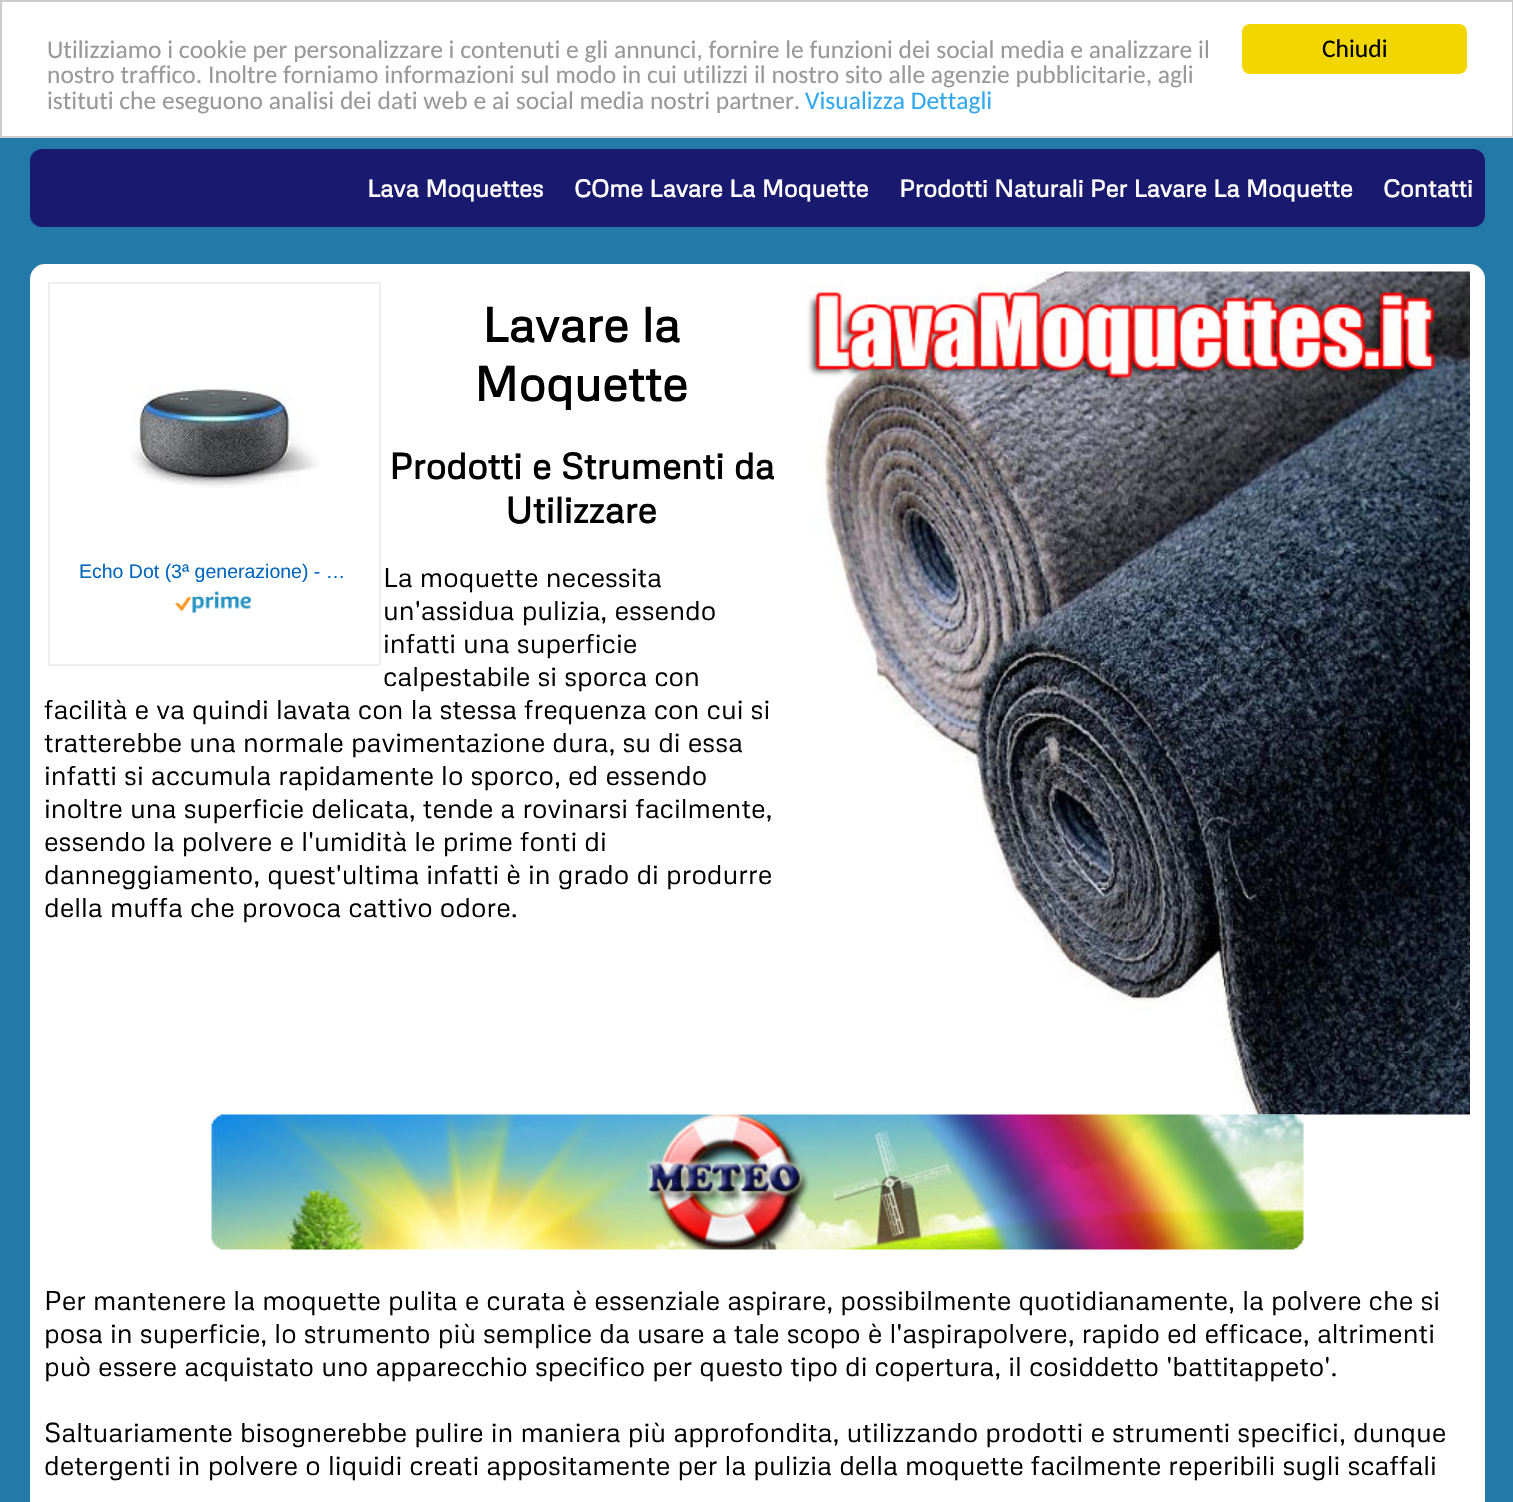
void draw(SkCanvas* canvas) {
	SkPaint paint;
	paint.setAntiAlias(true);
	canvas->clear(0xff237aa9);
	paint.setColor(0xffffffff);
	canvas->drawRect(SkRect::MakeXYWH(1, 1, 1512, 136), paint);
	paint.setStroke(true);
	paint.setStrokeWidth(2);
	paint.setColor(0xffcccccc);
	canvas->drawRect(SkRect::MakeXYWH(1, 1, 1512, 136), paint);
	SkFont f1(fontMgr->matchFamilyStyle("Carlito", SkFontStyle::Normal()), 25.5);
	f1.setSubpixel(true);
	paint.setStroke(false);
	paint.setColor(0xff999999);
	canvas->drawString("Utilizziamo i cookie per personalizzare i contenuti e gli annunci, fornire le funzioni dei social media e analizzare il", 47, 58, f1, paint);
	canvas->drawString("nostro traffico. Inoltre forniamo informazioni sul modo in cui utilizzi il nostro sito alle agenzie pubblicitarie, agli", 47, 83, f1, paint);
	canvas->drawString("istituti che eseguono analisi dei dati web e ai social media nostri partner.", 47, 109, f1, paint);
	paint.setColor(0xff31a8f0);
	canvas->drawString("Visualizza Dettagli", 805, 109, f1, paint);
	paint.setColor(0xfff1d600);
	canvas->drawRoundRect(SkRect::MakeXYWH(1242, 24, 225, 50), 8, 8, paint);
	paint.setColor(0xff000000);
	canvas->drawString("Chiudi", 1322, 57, f1, paint);
	paint.setColor(0xff191970);
	canvas->drawRoundRect(SkRect::MakeXYWH(30, 149, 1455, 78), 12, 12, paint);
	SkFont f2(fontMgr->matchFamilyStyle("Metrophobic", SkFontStyle::Bold()), 24);
	f2.setSubpixel(true);
	paint.setColor(0xffffffff);
	canvas->drawString("Lava Moquettes", 367, 197, f2, paint);
	canvas->drawString("COme Lavare La Moquette", 574, 197, f2, paint);
	canvas->drawString("Prodotti Naturali Per Lavare La Moquette", 899, 197, f2, paint);
	canvas->drawString("Contatti", 1383, 197, f2, paint);
	canvas->drawRoundRect(SkRect::MakeXYWH(30, 264, 1455, 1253), 15, 15, paint);
	SkFont f3(fontMgr->matchFamilyStyle("Metrophobic", SkFontStyle::Bold()), 48);
	f3.setSubpixel(true);
	paint.setColor(0xff000000);
	canvas->drawString("Lavare la", 482, 342, f3, paint);
	canvas->drawString("Moquette", 474, 401, f3, paint);
	canvas->drawImageRect(SkImages::DeferredFromEncodedData(SkData::MakeFromFileName("img1.png")), SkRect::MakeXYWH(807, 271, 663, 844), SkSamplingOptions());
	SkFont f4(fontMgr->matchFamilyStyle("Metrophobic", SkFontStyle::Bold()), 36);
	f4.setSubpixel(true);
	canvas->drawString("Prodotti e Strumenti da", 389, 479, f4, paint);
	canvas->drawString("Utilizzare", 505, 523, f4, paint);
	paint.setStroke(true);
	paint.setColor(0xffeeeeee);
	canvas->drawRect(SkRect::MakeXYWH(49, 283, 331, 382), paint);
	canvas->drawImageRect(SkImages::DeferredFromEncodedData(SkData::MakeFromFileName("img2.png")), SkRect::MakeXYWH(131, 384, 189, 104), SkSamplingOptions());
	SkFont f5(fontMgr->matchFamilyStyle("Liberation Sans", SkFontStyle::Normal()), 19.5);
	f5.setSubpixel(true);
	paint.setStroke(false);
	paint.setColor(0xff0066c0);
	canvas->drawString("Echo Dot (3ª generazione) - …", 79, 578, f5, paint);
	canvas->drawImageRect(SkImages::DeferredFromEncodedData(SkData::MakeFromFileName("img3.png")), SkRect::MakeXYWH(175, 591, 76, 22), SkSamplingOptions());
	SkFont f6(fontMgr->matchFamilyStyle("Metrophobic", SkFontStyle::Normal()), 27);
	f6.setSubpixel(true);
	paint.setColor(0xff000000);
	canvas->drawString("La moquette necessita", 383, 587, f6, paint);
	canvas->drawString("un'assidua pulizia, essendo", 383, 620, f6, paint);
	canvas->drawString("infatti una superficie", 383, 653, f6, paint);
	canvas->drawString("calpestabile si sporca con", 383, 686, f6, paint);
	canvas->drawString("facilità e va quindi lavata con la stessa frequenza con cui si", 44, 719, f6, paint);
	canvas->drawString("tratterebbe una normale pavimentazione dura, su di essa", 44, 752, f6, paint);
	canvas->drawString("infatti si accumula rapidamente lo sporco, ed essendo", 44, 785, f6, paint);
	canvas->drawString("inoltre una superficie delicata, tende a rovinarsi facilmente,", 44, 818, f6, paint);
	canvas->drawString("essendo la polvere e l'umidità le prime fonti di", 44, 851, f6, paint);
	canvas->drawString("danneggiamento, quest'ultima infatti è in grado di produrre", 44, 884, f6, paint);
	canvas->drawString("della muffa che provoca cattivo odore.", 44, 917, f6, paint);
	canvas->drawImageRect(SkImages::DeferredFromEncodedData(SkData::MakeFromFileName("img4.png")), SkRect::MakeXYWH(211, 1114, 1093, 136), SkSamplingOptions());
	canvas->drawString("Per mantenere la moquette pulita e curata è essenziale aspirare, possibilmente quotidianamente, la polvere che si", 44, 1310, f6, paint);
	canvas->drawString("posa in superficie, lo strumento più semplice da usare a tale scopo è l'aspirapolvere, rapido ed efficace, altrimenti", 44, 1343, f6, paint);
	canvas->drawString("può essere acquistato uno apparecchio specifico per questo tipo di copertura, il cosiddetto 'battitappeto'.", 44, 1376, f6, paint);
	canvas->drawString("Saltuariamente bisognerebbe pulire in maniera più approfondita, utilizzando prodotti e strumenti specifici, dunque", 44, 1442, f6, paint);
	canvas->drawString("detergenti in polvere o liquidi creati appositamente per la pulizia della moquette facilmente reperibili sugli scaffali", 44, 1475, f6, paint);
}
